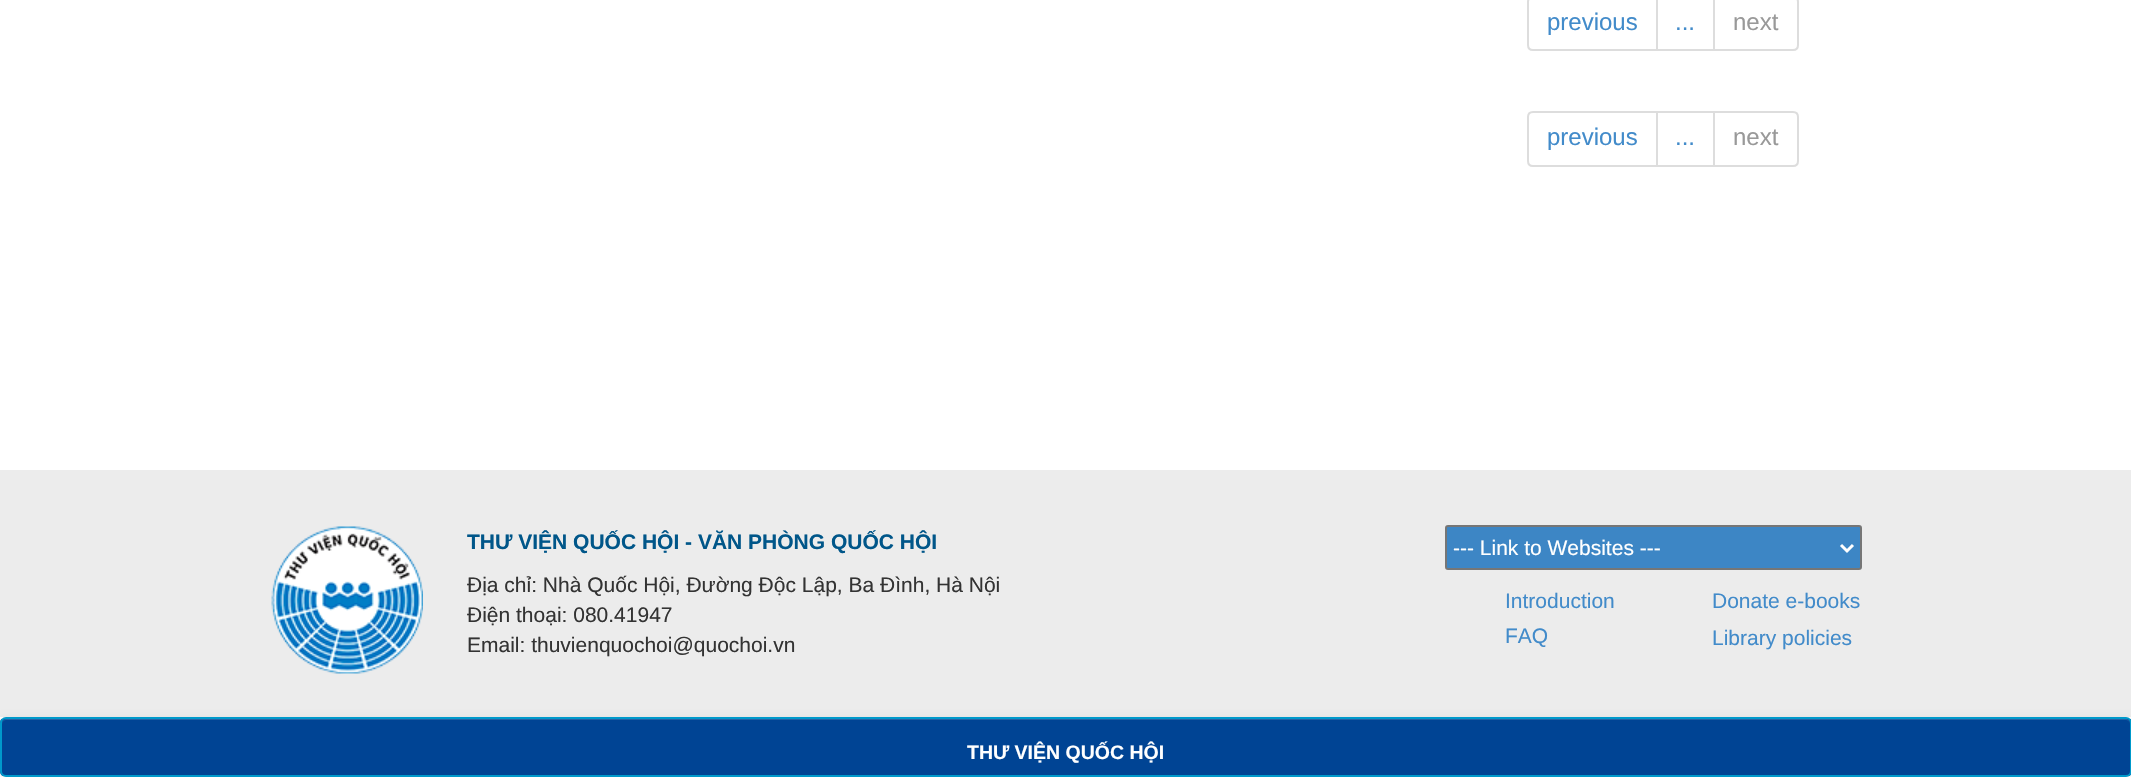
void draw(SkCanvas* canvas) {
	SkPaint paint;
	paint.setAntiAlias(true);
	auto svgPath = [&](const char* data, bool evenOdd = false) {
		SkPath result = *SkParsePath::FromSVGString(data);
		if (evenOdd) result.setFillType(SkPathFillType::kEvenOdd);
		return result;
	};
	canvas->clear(0xffffffff);
	paint.setStroke(true);
	paint.setStrokeWidth(2);
	paint.setColor(0xffdddddd);
	canvas->drawPath(svgPath("M1533-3H1657V50H1533C1530 50 1528 48 1528 45V2C1528-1 1530-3 1533-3Z"), paint);
	SkFont f1(fontMgr->matchFamilyStyle("Liberation Sans", SkFontStyle::Normal()), 24);
	f1.setSubpixel(true);
	paint.setStroke(false);
	paint.setColor(0xff428bca);
	canvas->drawString("previous", 1547, 30, f1, paint);
	paint.setStroke(true);
	paint.setColor(0xffdddddd);
	canvas->drawRect(SkRect::MakeXYWH(1657, -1, 57, 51), paint);
	paint.setStroke(false);
	paint.setColor(0xff428bca);
	canvas->drawString("...", 1675, 30, f1, paint);
	paint.setColor(0xffffffff);
	canvas->drawPath(svgPath("M1714-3H1793C1796-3 1798-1 1798 2V45C1798 48 1796 50 1793 50H1714Z"), paint);
	paint.setStroke(true);
	paint.setColor(0xffdddddd);
	canvas->drawPath(svgPath("M1714-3H1793C1796-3 1798-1 1798 2V45C1798 48 1796 50 1793 50H1714Z"), paint);
	paint.setStroke(false);
	paint.setColor(0xff999999);
	canvas->drawString("next", 1733, 30, f1, paint);
	paint.setStroke(true);
	paint.setColor(0xffdddddd);
	canvas->drawPath(svgPath("M1533 112H1657V166H1533C1530 166 1528 164 1528 161V117C1528 114 1530 112 1533 112Z"), paint);
	paint.setStroke(false);
	paint.setColor(0xff428bca);
	canvas->drawString("previous", 1547, 145, f1, paint);
	paint.setStroke(true);
	paint.setColor(0xffdddddd);
	canvas->drawRect(SkRect::MakeXYWH(1657, 112, 57, 54), paint);
	paint.setStroke(false);
	paint.setColor(0xff428bca);
	canvas->drawString("...", 1675, 145, f1, paint);
	paint.setColor(0xffffffff);
	canvas->drawPath(svgPath("M1714 112H1793C1796 112 1798 114 1798 117V161C1798 164 1796 166 1793 166H1714Z"), paint);
	paint.setStroke(true);
	paint.setColor(0xffdddddd);
	canvas->drawPath(svgPath("M1714 112H1793C1796 112 1798 114 1798 117V161C1798 164 1796 166 1793 166H1714Z"), paint);
	paint.setStroke(false);
	paint.setColor(0xff999999);
	canvas->drawString("next", 1733, 145, f1, paint);
	paint.setColor(0xffececec);
	canvas->drawRect(SkRect::MakeXYWH(0, 470, 2131, 247), paint);
	canvas->drawImageRect(SkImages::DeferredFromEncodedData(SkData::MakeFromFileName("img1.png")), SkRect::MakeXYWH(271, 526, 152, 148), SkSamplingOptions());
	SkFont f2(fontMgr->matchFamilyStyle("Liberation Sans", SkFontStyle::Bold()), 21);
	f2.setSubpixel(true);
	paint.setColor(0xff005689);
	canvas->drawString("THƯ VIỆN QUỐC HỘI - VĂN PHÒNG QUỐC HỘI", 467, 549, f2, paint);
	SkFont f3(fontMgr->matchFamilyStyle("Liberation Sans", SkFontStyle::Normal()), 21);
	f3.setSubpixel(true);
	paint.setColor(0xff333333);
	canvas->drawString("Địa chỉ: Nhà Quốc Hội, Đường Độc Lập, Ba Đình, Hà Nội", 467, 592, f3, paint);
	canvas->drawString("Điện thoại: 080.41947", 467, 622, f3, paint);
	canvas->drawString("Email: thuvienquochoi@quochoi.vn", 467, 652, f3, paint);
	paint.setColor(0xff3d86c5);
	canvas->drawRoundRect(SkRect::MakeXYWH(1446, 526, 415, 43), 2, 2, paint);
	paint.setStroke(true);
	paint.setColor(0xff767676);
	canvas->drawRoundRect(SkRect::MakeXYWH(1446, 526, 415, 43), 2, 2, paint);
	paint.setStrokeWidth(3);
	paint.setColor(0xffffffff);
	canvas->drawPath(svgPath("M1841 545L1847 551L1853 545"), paint);
	paint.setStroke(false);
	canvas->drawString("--- Link to Websites ---", 1453, 555, f3, paint);
	paint.setColor(0xff428bca);
	canvas->drawString("Introduction", 1505, 608, f3, paint);
	canvas->drawString("FAQ", 1505, 643, f3, paint);
	canvas->drawString("Donate e-books", 1712, 608, f3, paint);
	canvas->drawString("Library policies", 1712, 645, f3, paint);
	paint.setColor(0x12000000);
	paint.setMaskFilter(SkMaskFilter::MakeBlur(kNormal_SkBlurStyle, 4));
	canvas->drawRoundRect(SkRect::MakeXYWH(0, 719, 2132, 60), 6, 6, paint);
	paint.setMaskFilter(nullptr);
	canvas->save();
	canvas->clipPath(svgPath("M6 717H2126C2129.5 717 2132 719.5 2132 723V771C2132 774.5 2129.5 777 2126 777H6C2.5 777 0 774.5 0 771V723C0 719.5 2.5 717 6 717Z"), true);
	paint.setColor(0xff004494);
	canvas->drawRect(SkRect::MakeXYWH(0, 719, 2131, 57), paint);
	canvas->restore();
	paint.setColor(0xff2660a4);
	canvas->drawPath(svgPath("M6 720H2126C2128 720 2130 722 2130 724C2130 721 2128 719 2125 719H7C4 719 2 721 2 724C2 722 4 720 6 720Z"), paint);
	paint.setStroke(true);
	paint.setStrokeWidth(2);
	paint.setColor(0xff0099cb);
	canvas->drawRoundRect(SkRect::MakeXYWH(1, 718, 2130, 58), 5, 5, paint);
	SkFont f4(fontMgr->matchFamilyStyle("Liberation Sans", SkFontStyle::Bold()), 19.5);
	f4.setSubpixel(true);
	paint.setStroke(false);
	paint.setColor(0xffffffff);
	canvas->drawString("THƯ VIỆN QUỐC HỘI", 967, 759, f4, paint);
}
